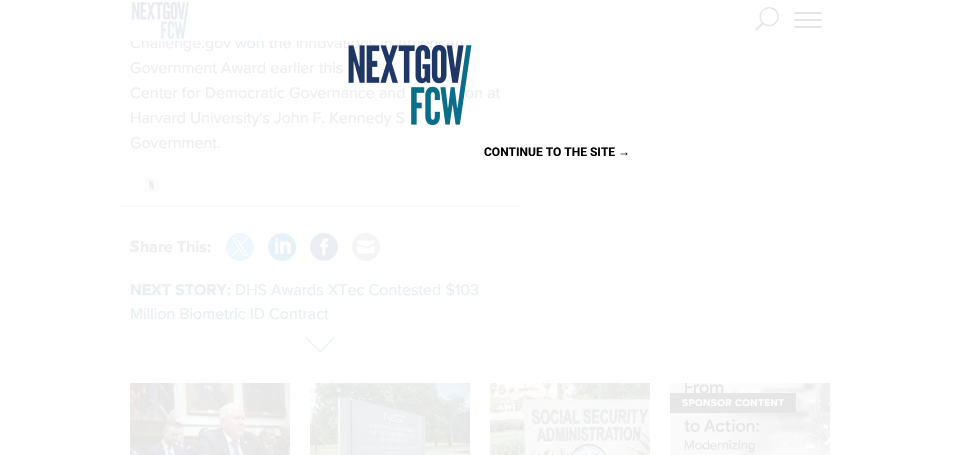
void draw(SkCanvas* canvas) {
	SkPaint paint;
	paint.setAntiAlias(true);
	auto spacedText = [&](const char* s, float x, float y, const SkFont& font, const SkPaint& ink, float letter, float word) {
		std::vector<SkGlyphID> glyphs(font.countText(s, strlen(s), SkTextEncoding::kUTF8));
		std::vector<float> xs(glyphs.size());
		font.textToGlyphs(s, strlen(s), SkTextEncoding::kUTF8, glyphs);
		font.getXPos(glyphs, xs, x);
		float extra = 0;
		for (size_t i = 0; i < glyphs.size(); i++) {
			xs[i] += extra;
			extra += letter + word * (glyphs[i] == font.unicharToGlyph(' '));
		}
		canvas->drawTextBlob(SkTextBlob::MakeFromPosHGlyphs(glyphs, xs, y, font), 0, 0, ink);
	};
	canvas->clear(0xffffffff);
	SkFont f1(fontMgr->matchFamilyStyle("Proxima Nova", SkFontStyle::Normal()), 16);
	f1.setSubpixel(true);
	paint.setColor(0xffeeeeef);
	canvas->drawString("Challenge.gov", 130, 48, f1, paint);
	paint.setColor(0xffe7f0f3);
	canvas->drawString("won", 235, 48, f1, paint);
	paint.setColor(0xffeeeeef);
	canvas->drawString("the Innovations in American", 269, 48, f1, paint);
	paint.setColor(0xffffffff);
	canvas->drawRect(SkRect::MakeXYWH(131, 37, 331, 4), paint);
	canvas->drawImageRect(SkImages::DeferredFromEncodedData(SkData::MakeFromFileName("img1.png")), SkRect::MakeXYWH(132, 2, 57, 37), SkSamplingOptions());
	canvas->drawImageRect(SkImages::DeferredFromEncodedData(SkData::MakeFromFileName("img2.png")), SkRect::MakeXYWH(755, 7, 24, 24), SkSamplingOptions());
	paint.setColor(0xffe6e6e6);
	canvas->drawRoundRect(SkRect::MakeXYWH(794, 19, 28, 2), 1, 1, paint);
	canvas->drawRoundRect(SkRect::MakeXYWH(794, 12, 28, 2), 1, 1, paint);
	canvas->drawRoundRect(SkRect::MakeXYWH(794, 26, 28, 2), 1, 1, paint);
	paint.setColor(0xffeeeeef);
	canvas->drawString("Government Award earlier this", 130, 73, f1, paint);
	canvas->drawString("Center for Democratic Governance and", 130, 98, f1, paint);
	canvas->drawString("on at", 465, 98, f1, paint);
	canvas->drawString("Harvard University's John F. Kennedy S", 130, 123, f1, paint);
	canvas->drawString("Government.", 130, 148, f1, paint);
	canvas->drawImageRect(SkImages::DeferredFromEncodedData(SkData::MakeFromFileName("img3.png")), SkRect::MakeXYWH(144, 177, 15, 15), SkSamplingOptions());
	paint.setColor(0xfff9f9f9);
	canvas->drawRect(SkRect::MakeXYWH(120, 205, 400, 2), paint);
	SkFont f2(fontMgr->matchFamilyStyle("Noto Sans", SkFontStyle(900, SkFontStyle::kNormal_Width, SkFontStyle::kUpright_Slant)), 16);
	f2.setSubpixel(true);
	paint.setColor(0xffeeeeef);
	canvas->drawString("S", 130, 252, f2, paint);
	SkFont f3(fontMgr->matchFamilyStyle("Proxima Nova", SkFontStyle::Bold()), 16);
	f3.setSubpixel(true);
	canvas->drawString("hare This:", 140, 252, f3, paint);
	canvas->drawImageRect(SkImages::DeferredFromEncodedData(SkData::MakeFromFileName("img4.png")), SkRect::MakeXYWH(226, 233, 28, 28), SkSamplingOptions());
	canvas->drawImageRect(SkImages::DeferredFromEncodedData(SkData::MakeFromFileName("img5.png")), SkRect::MakeXYWH(268, 233, 28, 28), SkSamplingOptions());
	canvas->drawImageRect(SkImages::DeferredFromEncodedData(SkData::MakeFromFileName("img6.png")), SkRect::MakeXYWH(310, 233, 28, 28), SkSamplingOptions());
	canvas->drawImageRect(SkImages::DeferredFromEncodedData(SkData::MakeFromFileName("img7.png")), SkRect::MakeXYWH(352, 233, 28, 28), SkSamplingOptions());
	paint.setColor(0xffe7f0f3);
	canvas->drawString("NEXT STORY:", 130, 295, f3, paint);
	canvas->drawString("DHS Awards XTec Contested $103", 235, 295, f1, paint);
	canvas->drawString("Million Biometric ID Contract", 130, 319, f1, paint);
	canvas->drawImageRect(SkImages::DeferredFromEncodedData(SkData::MakeFromFileName("img8.png")), SkRect::MakeXYWH(305, 336, 30, 17), SkSamplingOptions());
	canvas->drawImageRect(SkImages::DeferredFromEncodedData(SkData::MakeFromFileName("img9.png")), SkRect::MakeXYWH(130, 383, 160, 72), SkSamplingOptions());
	canvas->drawImageRect(SkImages::DeferredFromEncodedData(SkData::MakeFromFileName("img10.png")), SkRect::MakeXYWH(310, 383, 160, 72), SkSamplingOptions());
	canvas->drawImageRect(SkImages::DeferredFromEncodedData(SkData::MakeFromFileName("img11.png")), SkRect::MakeXYWH(490, 383, 160, 72), SkSamplingOptions());
	canvas->drawImageRect(SkImages::DeferredFromEncodedData(SkData::MakeFromFileName("img12.png")), SkRect::MakeXYWH(670, 383, 160, 72), SkSamplingOptions());
	paint.setColor(0xffe6e6e6);
	canvas->drawRect(SkRect::MakeXYWH(670, 393, 126, 20), paint);
	SkFont f4(fontMgr->matchFamilyStyle("Proxima Nova", SkFontStyle::Bold()), 10);
	f4.setSubpixel(true);
	paint.setColor(0xffffffff);
	spacedText("SPONSOR CONTENT", 682, 406, f4, paint, 0.4, 0);
	canvas->drawImageRect(SkImages::DeferredFromEncodedData(SkData::MakeFromFileName("img13.png")), SkRect::MakeXYWH(348, 45, 124, 80), SkSamplingOptions());
	SkFont f5(fontMgr->matchFamilyStyle("Roboto", SkFontStyle::Bold()), 12);
	f5.setSubpixel(true);
	paint.setColor(0xff000000);
	canvas->drawString("CONTINUE TO THE SITE", 484, 156, f5, paint);
	SkFont f6(fontMgr->matchFamilyStyle("Liberation Sans", SkFontStyle::Bold()), 12);
	f6.setSubpixel(true);
	canvas->drawString("→", 618, 156, f6, paint);
}
